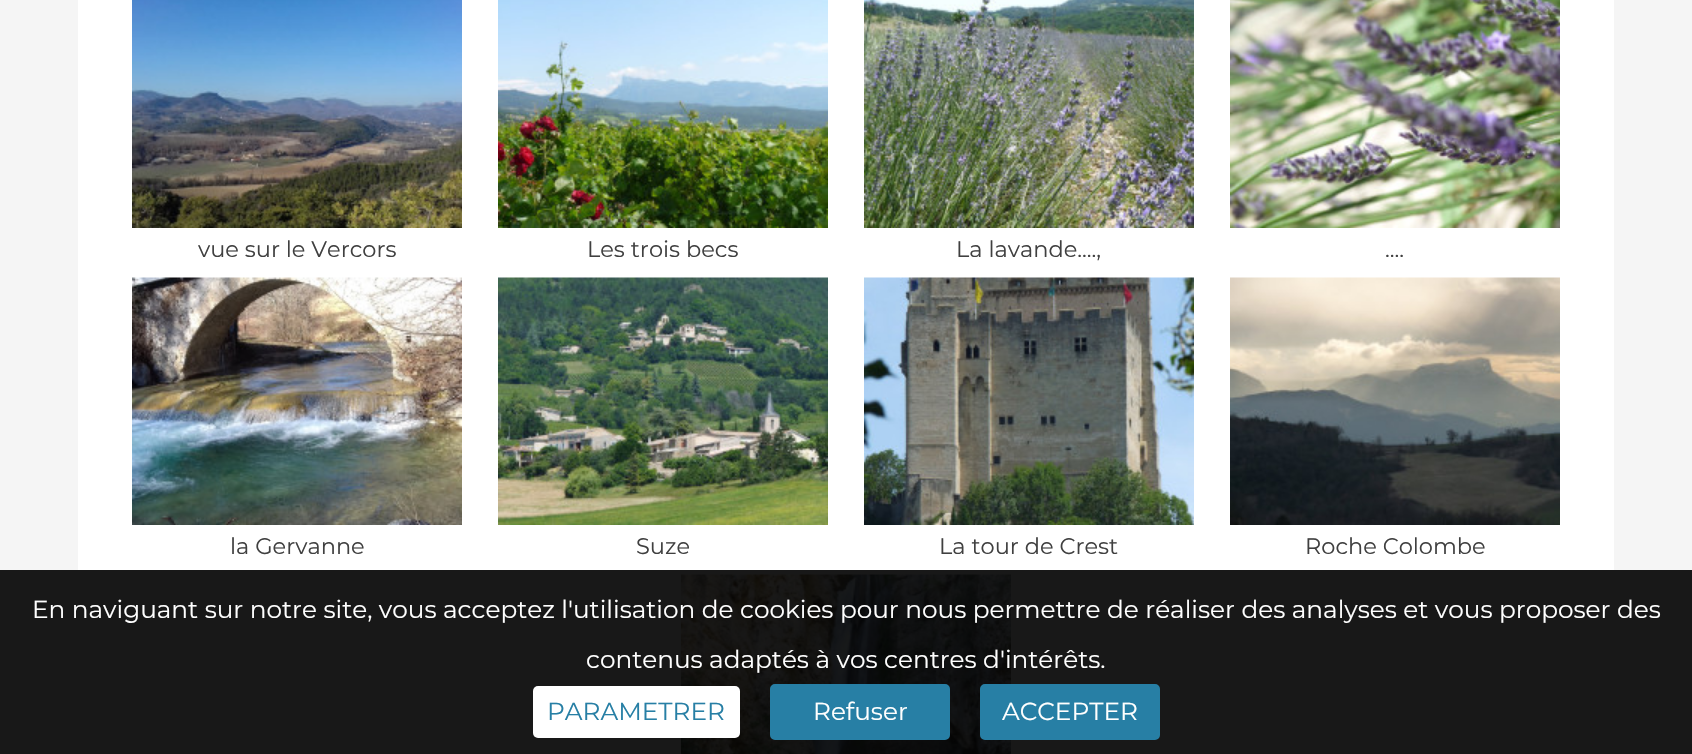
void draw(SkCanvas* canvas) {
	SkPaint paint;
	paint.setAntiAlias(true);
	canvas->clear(0xfff5f5f5);
	paint.setColor(0xff181818);
	canvas->drawRect(SkRect::MakeXYWH(0, 570, 1692, 184), paint);
	paint.setColor(0xffffffff);
	canvas->drawRect(SkRect::MakeXYWH(78, 0, 1536, 570), paint);
	canvas->drawImageRect(SkImages::DeferredFromEncodedData(SkData::MakeFromFileName("img1.png")), SkRect::MakeXYWH(132, 0, 330, 228), SkSamplingOptions());
	SkFont f1(fontMgr->matchFamilyStyle("Montserrat", SkFontStyle::Normal()), 22.5);
	f1.setSubpixel(true);
	paint.setColor(0xff404040);
	canvas->drawString("vue sur le Vercors", 198, 257, f1, paint);
	canvas->drawImageRect(SkImages::DeferredFromEncodedData(SkData::MakeFromFileName("img2.png")), SkRect::MakeXYWH(498, 0, 330, 228), SkSamplingOptions());
	canvas->drawString("Les trois becs", 587, 257, f1, paint);
	canvas->drawImageRect(SkImages::DeferredFromEncodedData(SkData::MakeFromFileName("img3.png")), SkRect::MakeXYWH(864, 0, 330, 228), SkSamplingOptions());
	canvas->drawString("La lavande....,", 956, 257, f1, paint);
	canvas->drawImageRect(SkImages::DeferredFromEncodedData(SkData::MakeFromFileName("img4.png")), SkRect::MakeXYWH(1230, 0, 330, 228), SkSamplingOptions());
	canvas->drawString("....", 1385, 257, f1, paint);
	canvas->drawImageRect(SkImages::DeferredFromEncodedData(SkData::MakeFromFileName("img5.png")), SkRect::MakeXYWH(132, 277, 330, 248), SkSamplingOptions());
	canvas->drawString("la Gervanne", 230, 554, f1, paint);
	canvas->drawImageRect(SkImages::DeferredFromEncodedData(SkData::MakeFromFileName("img6.png")), SkRect::MakeXYWH(498, 277, 330, 248), SkSamplingOptions());
	canvas->drawString("Suze", 636, 554, f1, paint);
	canvas->drawImageRect(SkImages::DeferredFromEncodedData(SkData::MakeFromFileName("img7.png")), SkRect::MakeXYWH(864, 277, 330, 248), SkSamplingOptions());
	canvas->drawString("La tour de Crest", 939, 554, f1, paint);
	canvas->drawImageRect(SkImages::DeferredFromEncodedData(SkData::MakeFromFileName("img8.png")), SkRect::MakeXYWH(1230, 277, 330, 248), SkSamplingOptions());
	canvas->drawString("Roche Colombe", 1305, 554, f1, paint);
	canvas->drawImageRect(SkImages::DeferredFromEncodedData(SkData::MakeFromFileName("img9.png")), SkRect::MakeXYWH(681, 574, 330, 180), SkSamplingOptions());
	SkFont f2(fontMgr->matchFamilyStyle("Montserrat", SkFontStyle::Normal()), 24.75);
	f2.setSubpixel(true);
	paint.setColor(0xffffffff);
	canvas->drawString("En naviguant sur notre site, vous acceptez l'utilisation de cookies pour nous permettre de réaliser des analyses et vous proposer des", 32, 618, f2, paint);
	canvas->drawString("contenus adaptés à vos centres d'intérêts.", 586, 668, f2, paint);
	canvas->drawRoundRect(SkRect::MakeXYWH(533, 686, 207, 52), 5, 5, paint);
	paint.setColor(0xff277fa5);
	canvas->drawString("PARAMETRER", 547, 720, f2, paint);
	canvas->drawRoundRect(SkRect::MakeXYWH(771, 685, 178, 54), 4, 4, paint);
	paint.setStroke(true);
	paint.setStrokeWidth(2);
	canvas->drawRoundRect(SkRect::MakeXYWH(771, 685, 178, 54), 4, 4, paint);
	paint.setStroke(false);
	paint.setColor(0xffffffff);
	canvas->drawString("Refuser", 813, 720, f2, paint);
	paint.setColor(0xff277fa5);
	canvas->drawRoundRect(SkRect::MakeXYWH(981, 685, 178, 54), 4, 4, paint);
	paint.setStroke(true);
	canvas->drawRoundRect(SkRect::MakeXYWH(981, 685, 178, 54), 4, 4, paint);
	paint.setStroke(false);
	paint.setColor(0xffffffff);
	canvas->drawString("ACCEPTER", 1002, 720, f2, paint);
}
